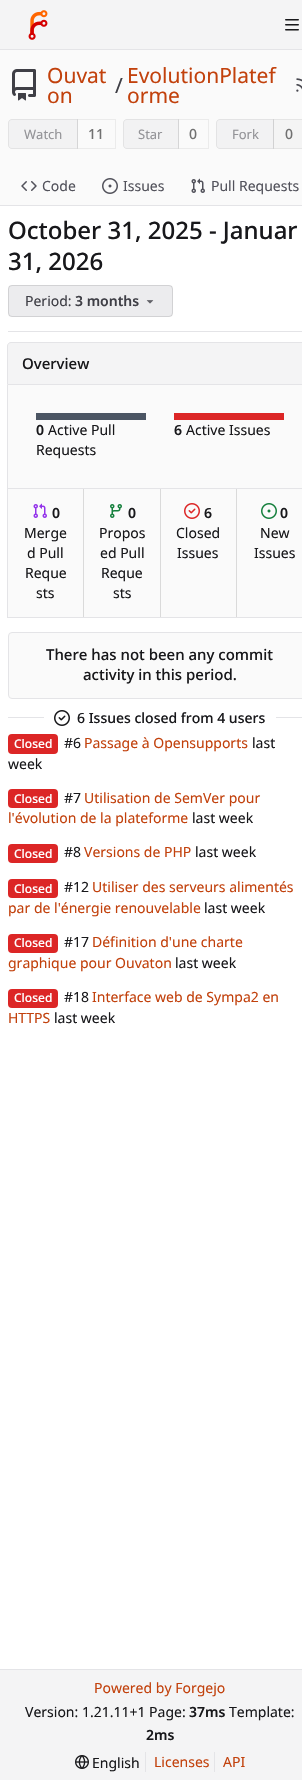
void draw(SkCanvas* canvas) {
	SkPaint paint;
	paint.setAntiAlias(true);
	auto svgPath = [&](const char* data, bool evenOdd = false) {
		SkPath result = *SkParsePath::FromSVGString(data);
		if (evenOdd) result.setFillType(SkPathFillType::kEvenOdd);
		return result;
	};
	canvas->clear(0xffffffff);
	paint.setColor(0xfff4f4f5);
	canvas->drawRect(SkRect::MakeXYWH(0, 0, 302, 49), paint);
	paint.setColor(0xffe4e4e7);
	canvas->drawRect(SkRect::MakeXYWH(0, 49, 302, 1), paint);
	canvas->drawImageRect(SkImages::DeferredFromEncodedData(SkData::MakeFromFileName("img1.png")), SkRect::MakeXYWH(28, 10, 20, 30), SkSamplingOptions());
	canvas->drawImageRect(SkImages::DeferredFromEncodedData(SkData::MakeFromFileName("img2.png")), SkRect::MakeXYWH(285, 19, 14, 12), SkSamplingOptions());
	paint.setColor(0xfffafafa);
	canvas->drawRect(SkRect::MakeXYWH(0, 50, 302, 155), paint);
	canvas->drawImageRect(SkImages::DeferredFromEncodedData(SkData::MakeFromFileName("img3.png")), SkRect::MakeXYWH(12, 69, 24, 32), SkSamplingOptions());
	SkFont f1(fontMgr->matchFamilyStyle("Noto Sans", SkFontStyle::Normal()), 21);
	f1.setSubpixel(true);
	paint.setColor(0xffc2410c);
	canvas->drawString("Ouvat", 47, 83, f1, paint);
	canvas->drawString("on", 47, 103, f1, paint);
	paint.setColor(0xff3f3f46);
	canvas->drawString("/", 115, 93, f1, paint);
	paint.setColor(0xffc2410c);
	canvas->drawString("EvolutionPlatef", 127, 83, f1, paint);
	canvas->drawString("orme", 127, 103, f1, paint);
	canvas->drawImageRect(SkImages::DeferredFromEncodedData(SkData::MakeFromFileName("img4.png")), SkRect::MakeXYWH(296, 78, 6, 14), SkSamplingOptions());
	paint.setColor(0xfff2f2f3);
	canvas->drawPath(svgPath("M12 119H78V149H12C10 149 8 147 8 145V123C8 121 10 119 12 119Z"), paint);
	paint.setStroke(true);
	paint.setStrokeWidth(1);
	paint.setColor(0x1c717171);
	canvas->drawPath(svgPath("M12 119.5H77.5V148.5H12C10 148.5 8.5 147 8.5 145V123C8.5 121 10 119.5 12 119.5Z"), paint);
	SkFont f2(fontMgr->matchFamilyStyle("Noto Sans", SkFontStyle::Normal()), 13);
	f2.setSubpixel(true);
	paint.setStroke(false);
	paint.setColor(0xff939397);
	canvas->drawString("Watch", 24, 139, f2, paint);
	paint.setStroke(true);
	paint.setColor(0x0f000000);
	canvas->drawRect(SkRect::MakeXYWH(77.5, 119.5, 38, 29), paint);
	SkFont f3(fontMgr->matchFamilyStyle("Noto Sans", SkFontStyle(500, SkFontStyle::kNormal_Width, SkFontStyle::kUpright_Slant)), 14);
	f3.setSubpixel(true);
	paint.setStroke(false);
	paint.setColor(0xff717171);
	canvas->drawString("11", 88, 139, f3, paint);
	paint.setColor(0xfff2f2f3);
	canvas->drawPath(svgPath("M127 119H179V149H127C125 149 123 147 123 145V123C123 121 125 119 127 119Z"), paint);
	paint.setStroke(true);
	paint.setColor(0x1c717171);
	canvas->drawPath(svgPath("M127 119.5H178.5V148.5H127C125 148.5 123.5 147 123.5 145V123C123.5 121 125 119.5 127 119.5Z"), paint);
	paint.setStroke(false);
	paint.setColor(0xff939397);
	canvas->drawString("Star", 138, 139, f2, paint);
	paint.setStroke(true);
	paint.setColor(0x0f000000);
	canvas->drawRect(SkRect::MakeXYWH(178.5, 119.5, 30, 29), paint);
	paint.setStroke(false);
	paint.setColor(0xff717171);
	canvas->drawString("0", 189, 139, f3, paint);
	paint.setColor(0xfff2f2f3);
	canvas->drawPath(svgPath("M220 119H274V149H220C218 149 216 147 216 145V123C216 121 218 119 220 119Z"), paint);
	paint.setStroke(true);
	paint.setColor(0x1c717171);
	canvas->drawPath(svgPath("M220 119.5H273.5V148.5H220C218 148.5 216.5 147 216.5 145V123C216.5 121 218 119.5 220 119.5Z"), paint);
	paint.setStroke(false);
	paint.setColor(0xff939397);
	canvas->drawString("Fork", 232, 139, f2, paint);
	paint.setColor(0x0a717171);
	canvas->drawRect(SkRect::MakeXYWH(273, 119, 29, 30), paint);
	paint.setStroke(true);
	paint.setColor(0x1c717171);
	canvas->drawRect(SkRect::MakeXYWH(273.5, 119.5, 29, 29), paint);
	paint.setStroke(false);
	paint.setColor(0xff717171);
	canvas->drawString("0", 285, 139, f3, paint);
	canvas->drawImageRect(SkImages::DeferredFromEncodedData(SkData::MakeFromFileName("img5.png")), SkRect::MakeXYWH(21, 181, 16, 10), SkSamplingOptions());
	SkFont f4(fontMgr->matchFamilyStyle("Noto Sans", SkFontStyle::Normal()), 14);
	f4.setSubpixel(true);
	paint.setColor(0xff52525b);
	canvas->drawString("Code", 42, 191, f4, paint);
	canvas->drawImageRect(SkImages::DeferredFromEncodedData(SkData::MakeFromFileName("img6.png")), SkRect::MakeXYWH(102, 178, 16, 16), SkSamplingOptions());
	canvas->drawString("Issues", 123, 191, f4, paint);
	canvas->drawImageRect(SkImages::DeferredFromEncodedData(SkData::MakeFromFileName("img7.png")), SkRect::MakeXYWH(191, 178, 14, 15), SkSamplingOptions());
	canvas->drawString("Pull Requests", 211, 191, f4, paint);
	paint.setColor(0xffe4e4e7);
	canvas->drawRect(SkRect::MakeXYWH(0, 205, 302, 1), paint);
	SkFont f5(fontMgr->matchFamilyStyle("Noto Sans", SkFontStyle(500, SkFontStyle::kNormal_Width, SkFontStyle::kUpright_Slant)), 24);
	f5.setSubpixel(true);
	paint.setColor(0xff18181b);
	canvas->drawString("October 31, 2025 - Januar", 8, 239, f5, paint);
	canvas->drawString("31, 2026", 8, 270, f5, paint);
	paint.setColor(0xffececee);
	canvas->drawRoundRect(SkRect::MakeXYWH(8, 285, 165, 32), 4, 4, paint);
	paint.setStroke(true);
	paint.setColor(0x1c000000);
	canvas->drawRoundRect(SkRect::MakeXYWH(8.5, 285.5, 164, 31), 3.5, 3.5, paint);
	paint.setStroke(false);
	paint.setColor(0xff3f3f46);
	canvas->drawString("Period:", 25, 306, f4, paint);
	SkFont f6(fontMgr->matchFamilyStyle("Noto Sans", SkFontStyle(600, SkFontStyle::kNormal_Width, SkFontStyle::kUpright_Slant)), 14);
	f6.setSubpixel(true);
	canvas->drawString("3 months", 75, 306, f6, paint);
	canvas->drawImageRect(SkImages::DeferredFromEncodedData(SkData::MakeFromFileName("img8.png")), SkRect::MakeXYWH(146, 300, 8, 4), SkSamplingOptions());
	paint.setColor(0xffe4e4e7);
	canvas->drawRect(SkRect::MakeXYWH(8, 331, 294, 1), paint);
	paint.setColor(0xfff4f4f5);
	canvas->drawPath(svgPath("M11 342.5H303C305 342.5 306.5 344 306.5 346V384.5H7.5V346C7.5 344 9 342.5 11 342.5Z"), paint);
	paint.setStroke(true);
	paint.setColor(0xffe4e4e7);
	canvas->drawPath(svgPath("M11 342.5H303C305 342.5 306.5 344 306.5 346V384.5H7.5V346C7.5 344 9 342.5 11 342.5Z"), paint);
	SkFont f7(fontMgr->matchFamilyStyle("Noto Sans", SkFontStyle(500, SkFontStyle::kNormal_Width, SkFontStyle::kUpright_Slant)), 15);
	f7.setSubpixel(true);
	paint.setStroke(false);
	paint.setColor(0xff18181b);
	canvas->drawString("Overview", 22, 369, f7, paint);
	paint.setColor(0xfffafafa);
	canvas->drawRect(SkRect::MakeXYWH(8, 385, 294, 103), paint);
	paint.setColor(0xffe4e4e7);
	canvas->drawRect(SkRect::MakeXYWH(7, 488, 295, 1), paint);
	canvas->drawRect(SkRect::MakeXYWH(7, 385, 1, 104), paint);
	paint.setColor(0xff4b5563);
	canvas->drawRect(SkRect::MakeXYWH(36, 413, 110, 7), paint);
	paint.setColor(0xff18181b);
	canvas->drawString("0", 36, 435, f6, paint);
	canvas->drawString("Active Pull", 48, 435, f4, paint);
	canvas->drawString("Requests", 36, 455, f4, paint);
	paint.setColor(0xffdc2626);
	canvas->drawRect(SkRect::MakeXYWH(174, 413, 110, 7), paint);
	paint.setColor(0xff18181b);
	canvas->drawString("6", 174, 435, f6, paint);
	canvas->drawString("Active Issues", 186, 435, f4, paint);
	paint.setColor(0xfffafafa);
	canvas->drawRect(SkRect::MakeXYWH(8, 489, 294, 128), paint);
	paint.setColor(0xffe4e4e7);
	canvas->drawRect(SkRect::MakeXYWH(7, 617, 295, 1), paint);
	canvas->drawRect(SkRect::MakeXYWH(7, 489, 1, 129), paint);
	canvas->drawImageRect(SkImages::DeferredFromEncodedData(SkData::MakeFromFileName("img9.png")), SkRect::MakeXYWH(33, 503, 14, 15), SkSamplingOptions());
	paint.setColor(0xff18181b);
	canvas->drawString("0", 52, 518, f6, paint);
	canvas->drawString("Merge", 24, 538, f4, paint);
	canvas->drawString("d Pull", 27, 558, f4, paint);
	canvas->drawString("Reque", 25, 578, f4, paint);
	canvas->drawString("sts", 36, 598, f4, paint);
	paint.setColor(0xffdadada);
	canvas->drawRect(SkRect::MakeXYWH(83, 489, 1, 128), paint);
	canvas->drawImageRect(SkImages::DeferredFromEncodedData(SkData::MakeFromFileName("img10.png")), SkRect::MakeXYWH(110, 504, 12, 14), SkSamplingOptions());
	paint.setColor(0xff18181b);
	canvas->drawString("0", 128, 518, f6, paint);
	canvas->drawString("Propos", 99, 538, f4, paint);
	canvas->drawString("ed Pull", 100, 558, f4, paint);
	canvas->drawString("Reque", 101, 578, f4, paint);
	canvas->drawString("sts", 113, 598, f4, paint);
	paint.setColor(0xffdadada);
	canvas->drawRect(SkRect::MakeXYWH(160, 489, 1, 128), paint);
	canvas->drawImageRect(SkImages::DeferredFromEncodedData(SkData::MakeFromFileName("img11.png")), SkRect::MakeXYWH(184, 503, 16, 16), SkSamplingOptions());
	paint.setColor(0xff18181b);
	canvas->drawString("6", 204, 518, f6, paint);
	canvas->drawString("Closed", 176, 538, f4, paint);
	canvas->drawString("Issues", 177, 558, f4, paint);
	paint.setColor(0xffdadada);
	canvas->drawRect(SkRect::MakeXYWH(236, 489, 1, 128), paint);
	canvas->drawImageRect(SkImages::DeferredFromEncodedData(SkData::MakeFromFileName("img12.png")), SkRect::MakeXYWH(261, 503, 16, 16), SkSamplingOptions());
	paint.setColor(0xff18181b);
	canvas->drawString("0", 280, 518, f6, paint);
	canvas->drawString("New", 260, 538, f4, paint);
	canvas->drawString("Issues", 254, 558, f4, paint);
	paint.setColor(0xfffafafa);
	canvas->drawRoundRect(SkRect::MakeXYWH(8.5, 632.5, 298, 66), 3.5, 3.5, paint);
	paint.setStroke(true);
	paint.setColor(0xffe4e4e7);
	canvas->drawRoundRect(SkRect::MakeXYWH(8.5, 632.5, 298, 66), 3.5, 3.5, paint);
	paint.setStroke(false);
	paint.setColor(0xff18181b);
	canvas->drawString("There has not been any commit", 46, 660, f7, paint);
	canvas->drawString("activity in this period.", 83, 680, f7, paint);
	paint.setColor(0xffe4e4e7);
	canvas->drawRect(SkRect::MakeXYWH(8, 717, 36, 1), paint);
	canvas->drawImageRect(SkImages::DeferredFromEncodedData(SkData::MakeFromFileName("img13.png")), SkRect::MakeXYWH(54, 710, 16, 16), SkSamplingOptions());
	paint.setColor(0xff18181b);
	canvas->drawString("6 Issues closed from 4 users", 77, 723, f3, paint);
	paint.setColor(0xffe4e4e7);
	canvas->drawRect(SkRect::MakeXYWH(276, 717, 26, 1), paint);
	paint.setColor(0xffdc2626);
	canvas->drawRoundRect(SkRect::MakeXYWH(8, 734, 50, 20), 4, 4, paint);
	SkFont f8(fontMgr->matchFamilyStyle("Noto Sans", SkFontStyle(500, SkFontStyle::kNormal_Width, SkFontStyle::kUpright_Slant)), 12);
	f8.setSubpixel(true);
	paint.setColor(0xffffffff);
	canvas->drawString("Closed", 14, 748, f8, paint);
	paint.setColor(0xff18181b);
	canvas->drawString("#6", 64, 748, f4, paint);
	paint.setColor(0xffc2410c);
	canvas->drawString("Passage à Opensupports", 84, 748, f4, paint);
	paint.setColor(0xff18181b);
	canvas->drawString("last", 252, 748, f4, paint);
	canvas->drawString("week", 8, 769, f4, paint);
	paint.setColor(0xffdc2626);
	canvas->drawRoundRect(SkRect::MakeXYWH(8, 789, 50, 19), 4, 4, paint);
	paint.setColor(0xffffffff);
	canvas->drawString("Closed", 14, 803, f8, paint);
	paint.setColor(0xff18181b);
	canvas->drawString("#7", 64, 803, f4, paint);
	paint.setColor(0xffc2410c);
	canvas->drawString("Utilisation de SemVer pour", 84, 803, f4, paint);
	canvas->drawString("l'évolution de la plateforme", 8, 823, f4, paint);
	paint.setColor(0xff18181b);
	canvas->drawString("last week", 192, 823, f4, paint);
	paint.setColor(0xffdc2626);
	canvas->drawRoundRect(SkRect::MakeXYWH(8, 844, 50, 19), 4, 4, paint);
	paint.setColor(0xffffffff);
	canvas->drawString("Closed", 14, 858, f8, paint);
	paint.setColor(0xff18181b);
	canvas->drawString("#8", 64, 857, f4, paint);
	paint.setColor(0xffc2410c);
	canvas->drawString("Versions de PHP", 84, 857, f4, paint);
	paint.setColor(0xff18181b);
	canvas->drawString("last week", 195, 857, f4, paint);
	paint.setColor(0xffdc2626);
	canvas->drawRoundRect(SkRect::MakeXYWH(8, 879, 50, 19), 4, 4, paint);
	paint.setColor(0xffffffff);
	canvas->drawString("Closed", 14, 893, f8, paint);
	paint.setColor(0xff18181b);
	canvas->drawString("#12", 64, 892, f4, paint);
	paint.setColor(0xffc2410c);
	canvas->drawString("Utiliser des serveurs alimentés", 92, 892, f4, paint);
	canvas->drawString("par de l'énergie renouvelable", 8, 913, f4, paint);
	paint.setColor(0xff18181b);
	canvas->drawString("last week", 204, 913, f4, paint);
	paint.setColor(0xffdc2626);
	canvas->drawRoundRect(SkRect::MakeXYWH(8, 934, 50, 19), 4, 4, paint);
	paint.setColor(0xffffffff);
	canvas->drawString("Closed", 14, 947, f8, paint);
	paint.setColor(0xff18181b);
	canvas->drawString("#17", 64, 947, f4, paint);
	paint.setColor(0xffc2410c);
	canvas->drawString("Définition d'une charte", 92, 947, f4, paint);
	canvas->drawString("graphique pour Ouvaton", 8, 968, f4, paint);
	paint.setColor(0xff18181b);
	canvas->drawString("last week", 175, 968, f4, paint);
	paint.setColor(0xffdc2626);
	canvas->drawRoundRect(SkRect::MakeXYWH(8, 989, 50, 19), 4, 4, paint);
	paint.setColor(0xffffffff);
	canvas->drawString("Closed", 14, 1002, f8, paint);
	paint.setColor(0xff18181b);
	canvas->drawString("#18", 64, 1002, f4, paint);
	paint.setColor(0xffc2410c);
	canvas->drawString("Interface web de Sympa2 en", 92, 1002, f4, paint);
	canvas->drawString("HTTPS", 8, 1023, f4, paint);
	paint.setColor(0xff18181b);
	canvas->drawString("last week", 54, 1023, f4, paint);
	paint.setColor(0xfff4f4f5);
	canvas->drawRect(SkRect::MakeXYWH(0, 1670, 302, 110), paint);
	paint.setColor(0xffe4e4e7);
	canvas->drawRect(SkRect::MakeXYWH(0, 1669, 302, 1), paint);
	paint.setColor(0xffc2410c);
	canvas->drawString("Powered by Forgejo", 94, 1693, f4, paint);
	paint.setColor(0xff18181b);
	canvas->drawString("Version: 1.21.11+1 Page:", 25, 1717, f4, paint);
	canvas->drawString("37ms", 189, 1717, f6, paint);
	canvas->drawString("Template:", 229, 1717, f4, paint);
	canvas->drawString("2ms", 146, 1740, f6, paint);
	canvas->drawImageRect(SkImages::DeferredFromEncodedData(SkData::MakeFromFileName("img14.png")), SkRect::MakeXYWH(75, 1755, 14, 14), SkSamplingOptions());
	canvas->drawString("English", 92, 1768, f4, paint);
	paint.setColor(0xffe4e4e7);
	canvas->drawRect(SkRect::MakeXYWH(145, 1752, 1, 20), paint);
	paint.setColor(0xffc2410c);
	canvas->drawString("Licenses", 154, 1767, f4, paint);
	paint.setColor(0xffe4e4e7);
	canvas->drawRect(SkRect::MakeXYWH(214, 1752, 1, 20), paint);
	paint.setColor(0xffc2410c);
	canvas->drawString("API", 223, 1767, f4, paint);
}
